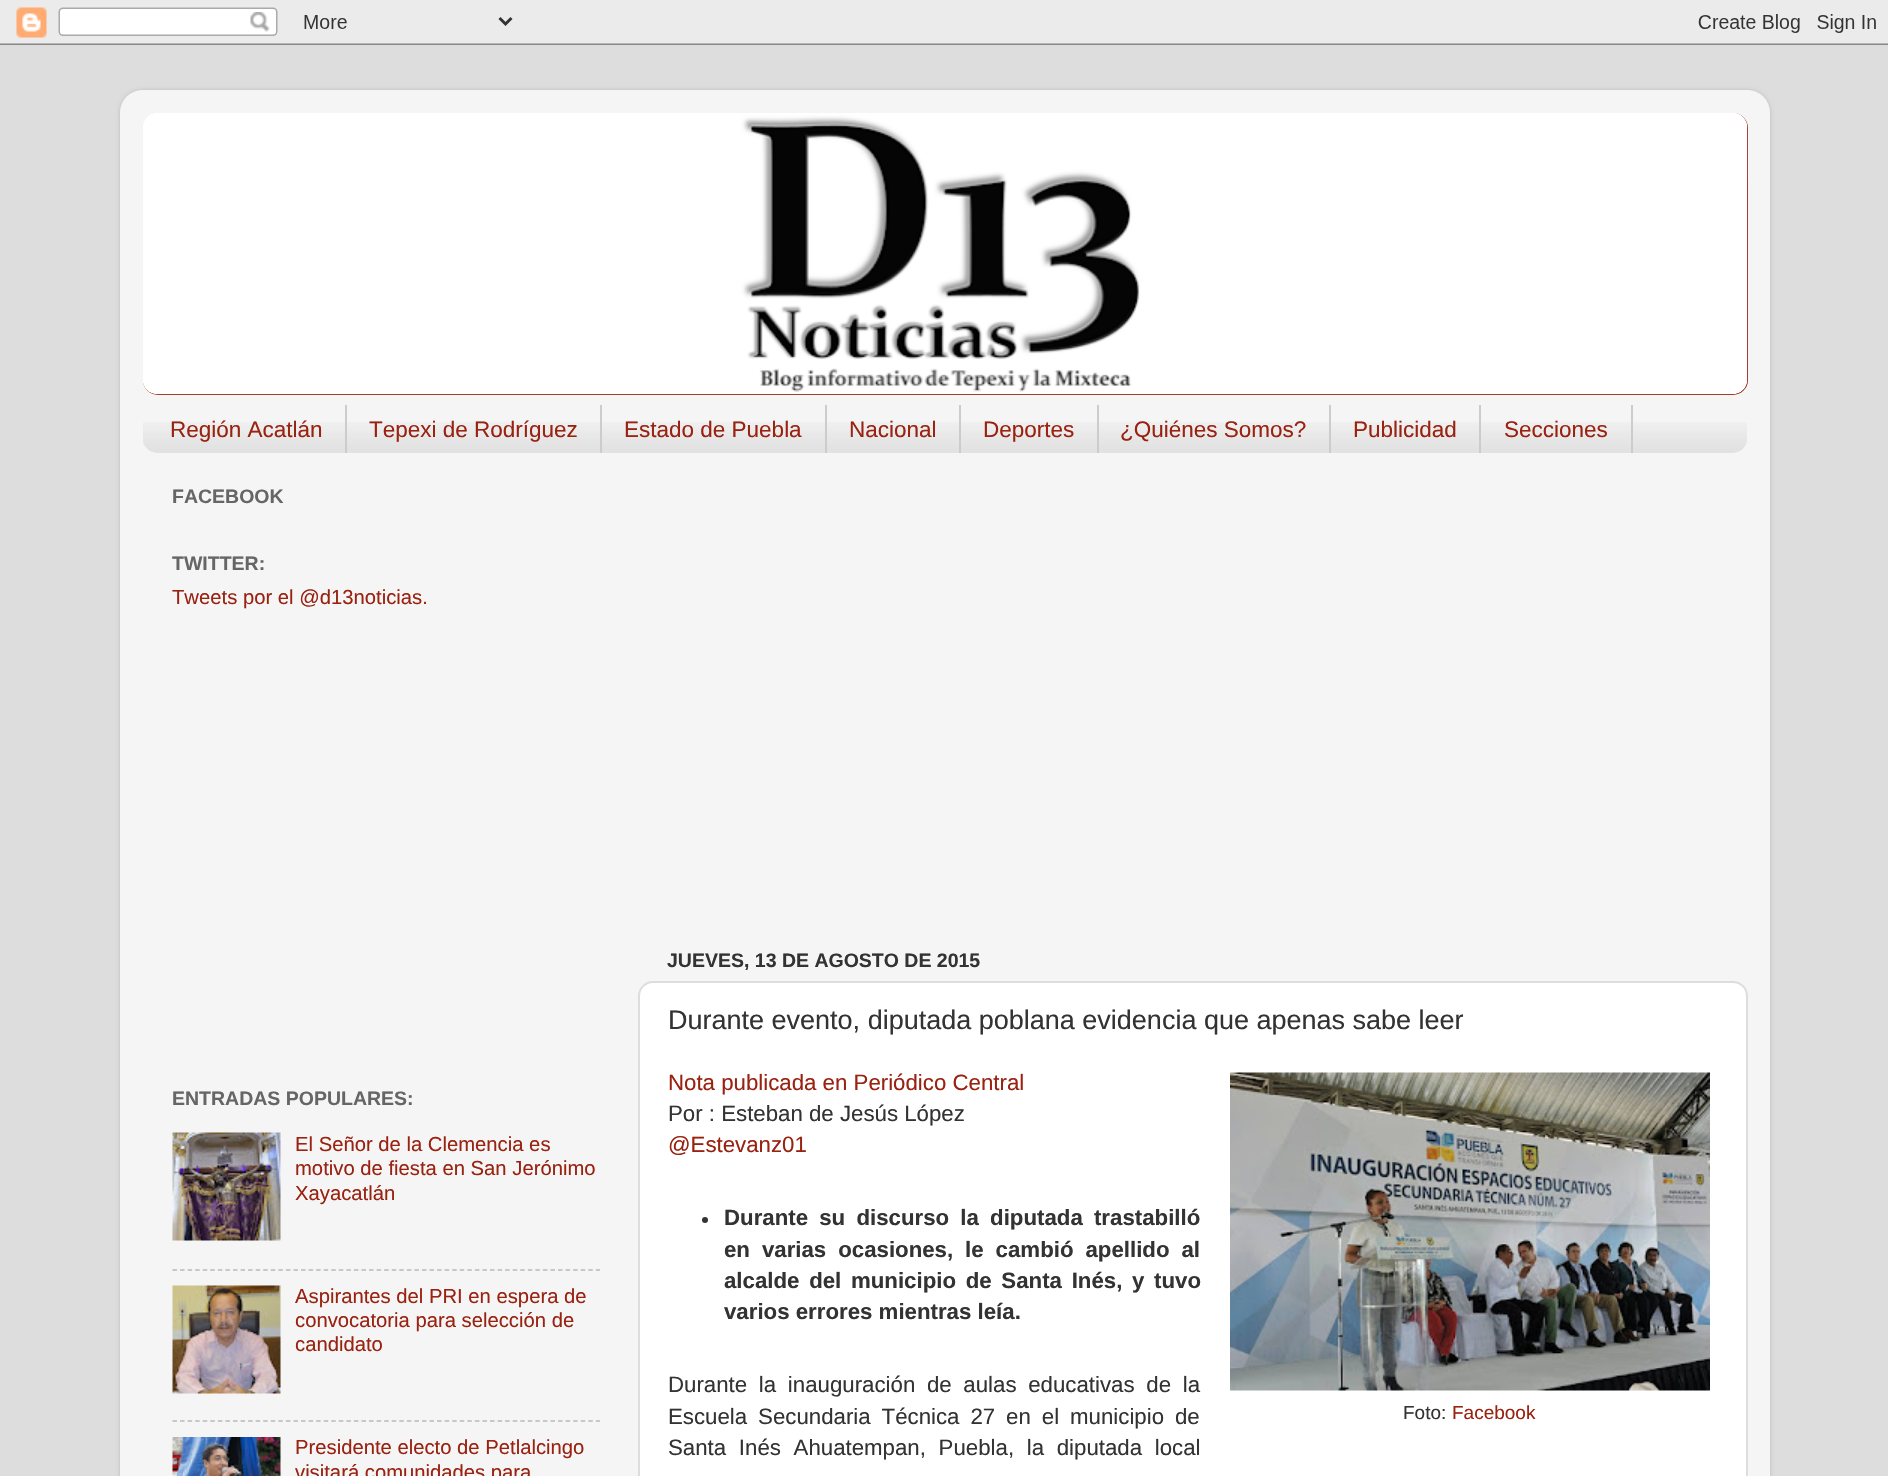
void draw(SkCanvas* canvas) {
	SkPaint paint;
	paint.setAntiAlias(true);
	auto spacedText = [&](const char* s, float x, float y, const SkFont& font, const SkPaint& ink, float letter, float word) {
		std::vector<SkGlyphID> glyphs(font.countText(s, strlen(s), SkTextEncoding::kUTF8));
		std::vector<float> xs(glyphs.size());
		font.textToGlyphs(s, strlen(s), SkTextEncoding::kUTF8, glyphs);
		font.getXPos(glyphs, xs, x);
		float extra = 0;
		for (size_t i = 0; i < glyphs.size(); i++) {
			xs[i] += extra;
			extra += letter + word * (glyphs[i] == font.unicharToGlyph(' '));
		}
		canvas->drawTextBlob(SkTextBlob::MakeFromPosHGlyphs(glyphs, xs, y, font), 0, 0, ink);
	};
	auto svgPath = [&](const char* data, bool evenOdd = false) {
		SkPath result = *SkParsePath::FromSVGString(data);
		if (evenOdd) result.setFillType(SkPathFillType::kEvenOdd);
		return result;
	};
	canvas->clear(0xffdddddd);
	canvas->drawImageRect(SkImages::DeferredFromEncodedData(SkData::MakeFromFileName("img1.png")), SkRect::MakeXYWH(0, 0, 1888, 45), SkSamplingOptions());
	canvas->save();
	canvas->clipPath(svgPath("M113 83H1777V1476H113ZM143 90H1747C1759.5 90 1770 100.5 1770 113V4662C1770 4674.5 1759.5 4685 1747 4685H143C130.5 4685 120 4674.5 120 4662V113C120 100.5 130.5 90 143 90Z", true), true);
	paint.setColor(0x26000000);
	paint.setMaskFilter(SkMaskFilter::MakeBlur(kNormal_SkBlurStyle, 2));
	canvas->drawRoundRect(SkRect::MakeXYWH(120, 90, 1650, 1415), 23, 23, paint);
	paint.setMaskFilter(nullptr);
	canvas->restore();
	canvas->drawImageRect(SkImages::DeferredFromEncodedData(SkData::MakeFromFileName("img2.png")), SkRect::MakeXYWH(120, 90, 1650, 1386), SkSamplingOptions());
	paint.setColor(0xff992211);
	canvas->drawRoundRect(SkRect::MakeXYWH(143, 113, 1605, 282), 15, 15, paint);
	canvas->drawImageRect(SkImages::DeferredFromEncodedData(SkData::MakeFromFileName("img3.png")), SkRect::MakeXYWH(143, 113, 1605, 65), SkSamplingOptions());
	canvas->drawImageRect(SkImages::DeferredFromEncodedData(SkData::MakeFromFileName("img4.png")), SkRect::MakeXYWH(143, 113, 1605, 282), SkSamplingOptions());
	canvas->drawImageRect(SkImages::DeferredFromEncodedData(SkData::MakeFromFileName("img5.png")), SkRect::MakeXYWH(143, 422, 1604, 31), SkSamplingOptions());
	paint.setColor(0xffcccccc);
	canvas->drawRect(SkRect::MakeXYWH(345, 405, 2, 48), paint);
	SkFont f1(fontMgr->matchFamilyStyle("Liberation Sans", SkFontStyle::Normal()), 22.5);
	f1.setSubpixel(true);
	paint.setColor(0xff992211);
	canvas->drawString("Región Acatlán", 170, 437, f1, paint);
	paint.setColor(0xffcccccc);
	canvas->drawRect(SkRect::MakeXYWH(600, 405, 2, 48), paint);
	paint.setColor(0xff992211);
	canvas->drawString("Tepexi de Rodríguez", 369, 437, f1, paint);
	paint.setColor(0xffcccccc);
	canvas->drawRect(SkRect::MakeXYWH(825, 405, 2, 48), paint);
	paint.setColor(0xff992211);
	canvas->drawString("Estado de Puebla", 624, 437, f1, paint);
	paint.setColor(0xffcccccc);
	canvas->drawRect(SkRect::MakeXYWH(959, 405, 2, 48), paint);
	paint.setColor(0xff992211);
	canvas->drawString("Nacional", 849, 437, f1, paint);
	paint.setColor(0xffcccccc);
	canvas->drawRect(SkRect::MakeXYWH(1097, 405, 2, 48), paint);
	paint.setColor(0xff992211);
	canvas->drawString("Deportes", 983, 437, f1, paint);
	paint.setColor(0xffcccccc);
	canvas->drawRect(SkRect::MakeXYWH(1329, 405, 2, 48), paint);
	paint.setColor(0xff992211);
	canvas->drawString("¿Quiénes Somos?", 1120, 437, f1, paint);
	paint.setColor(0xffcccccc);
	canvas->drawRect(SkRect::MakeXYWH(1479, 405, 2, 48), paint);
	paint.setColor(0xff992211);
	canvas->drawString("Publicidad", 1353, 437, f1, paint);
	paint.setColor(0xffcccccc);
	canvas->drawRect(SkRect::MakeXYWH(1631, 405, 2, 48), paint);
	paint.setColor(0xff992211);
	canvas->drawString("Secciones", 1504, 437, f1, paint);
	SkFont f2(fontMgr->matchFamilyStyle("Liberation Sans", SkFontStyle::Bold()), 19.5);
	f2.setSubpixel(true);
	paint.setColor(0xff666666);
	canvas->drawString("FACEBOOK", 172, 503, f2, paint);
	canvas->drawString("TWITTER:", 172, 570, f2, paint);
	SkFont f3(fontMgr->matchFamilyStyle("Liberation Sans", SkFontStyle::Normal()), 20.25);
	f3.setSubpixel(true);
	paint.setColor(0xff992211);
	canvas->drawString("Tweets por el @d13noticias.", 172, 604, f3, paint);
	paint.setColor(0xff666666);
	canvas->drawString("ENTRADAS POPULARES:", 172, 1105, f2, paint);
	canvas->drawImageRect(SkImages::DeferredFromEncodedData(SkData::MakeFromFileName("img6.png")), SkRect::MakeXYWH(172, 1132, 109, 109), SkSamplingOptions());
	paint.setColor(0xff992211);
	canvas->drawString("El Señor de la Clemencia es", 295, 1151, f3, paint);
	canvas->drawString("motivo de fiesta en San Jerónimo", 295, 1175, f3, paint);
	canvas->drawString("Xayacatlán", 295, 1200, f3, paint);
	paint.setStroke(true);
	paint.setStrokeWidth(1.5);
	paint.setColor(0xffbababa);
	paint.setPathEffect(SkDashPathEffect::Make({{4.5f, 3.06f}}, 0));
	canvas->drawPath(svgPath("M172.5 1270H600"), paint);
	paint.setPathEffect(nullptr);
	canvas->drawImageRect(SkImages::DeferredFromEncodedData(SkData::MakeFromFileName("img7.png")), SkRect::MakeXYWH(172, 1285, 109, 109), SkSamplingOptions());
	paint.setStroke(false);
	paint.setColor(0xff992211);
	canvas->drawString("Aspirantes del PRI en espera de", 295, 1303, f3, paint);
	canvas->drawString("convocatoria para selección de", 295, 1327, f3, paint);
	canvas->drawString("candidato", 295, 1351, f3, paint);
	paint.setStroke(true);
	paint.setColor(0xffbababa);
	paint.setPathEffect(SkDashPathEffect::Make({{4.5f, 3.06f}}, 0));
	canvas->drawPath(svgPath("M172.5 1421H600"), paint);
	paint.setPathEffect(nullptr);
	canvas->drawImageRect(SkImages::DeferredFromEncodedData(SkData::MakeFromFileName("img8.png")), SkRect::MakeXYWH(172, 1437, 109, 39), SkSamplingOptions());
	paint.setStroke(false);
	paint.setColor(0xff992211);
	canvas->drawString("Presidente electo de Petlalcingo", 295, 1454, f3, paint);
	canvas->drawString("visitará comunidades para", 295, 1479, f3, paint);
	paint.setColor(0xff333333);
	canvas->drawString("JUEVES, 13 DE AGOSTO DE 2015", 667, 967, f2, paint);
	paint.setColor(0xffffffff);
	canvas->drawRoundRect(SkRect::MakeXYWH(639, 982, 1108, 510), 14, 14, paint);
	paint.setStroke(true);
	paint.setStrokeWidth(2);
	paint.setColor(0xffdddddd);
	canvas->drawRoundRect(SkRect::MakeXYWH(639, 982, 1108, 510), 14, 14, paint);
	SkFont f4(fontMgr->matchFamilyStyle("Liberation Sans", SkFontStyle::Normal()), 27);
	f4.setSubpixel(true);
	paint.setStroke(false);
	paint.setColor(0xff333333);
	canvas->drawString("Durante evento, diputada poblana evidencia que apenas sabe leer", 668, 1029, f4, paint);
	SkFont f5(fontMgr->matchFamilyStyle("Liberation Sans", SkFontStyle::Normal()), 22.25);
	f5.setSubpixel(true);
	paint.setColor(0xff992211);
	canvas->drawString("Nota publicada en Periódico Central", 668, 1090, f5, paint);
	paint.setColor(0xff333333);
	canvas->drawString("Por : Esteban de Jesús López", 668, 1121, f5, paint);
	paint.setColor(0xff992211);
	canvas->drawString("@Estevanz01", 668, 1152, f5, paint);
	paint.setColor(0xff333333);
	canvas->drawCircle(705, 1220, 3, paint);
	SkFont f6(fontMgr->matchFamilyStyle("Liberation Sans", SkFontStyle::Bold()), 22.25);
	f6.setSubpixel(true);
	spacedText("Durante su discurso la diputada trastabilló", 724, 1225, f6, paint, 0, 5);
	spacedText("en varias ocasiones, le cambió apellido al", 724, 1257, f6, paint, 0, 5.75);
	spacedText("alcalde del municipio de Santa Inés, y tuvo", 724, 1288, f6, paint, 0, 3.5);
	canvas->drawString("varios errores mientras leía.", 724, 1319, f6, paint);
	spacedText("Durante la inauguración de aulas educativas de la", 668, 1392, f5, paint, 0, 5.5);
	spacedText("Escuela Secundaria Técnica 27 en el municipio de", 668, 1424, f5, paint, 0, 4.75);
	spacedText("Santa Inés Ahuatempan, Puebla, la diputada local", 668, 1455, f5, paint, 0, 6.5);
	canvas->drawImageRect(SkImages::DeferredFromEncodedData(SkData::MakeFromFileName("img9.png")), SkRect::MakeXYWH(1230, 1072, 480, 319), SkSamplingOptions());
	SkFont f7(fontMgr->matchFamilyStyle("Liberation Sans", SkFontStyle::Normal()), 19);
	f7.setSubpixel(true);
	canvas->drawString("Foto:", 1403, 1419, f7, paint);
	paint.setColor(0xff992211);
	canvas->drawString("Facebook", 1452, 1419, f7, paint);
}
